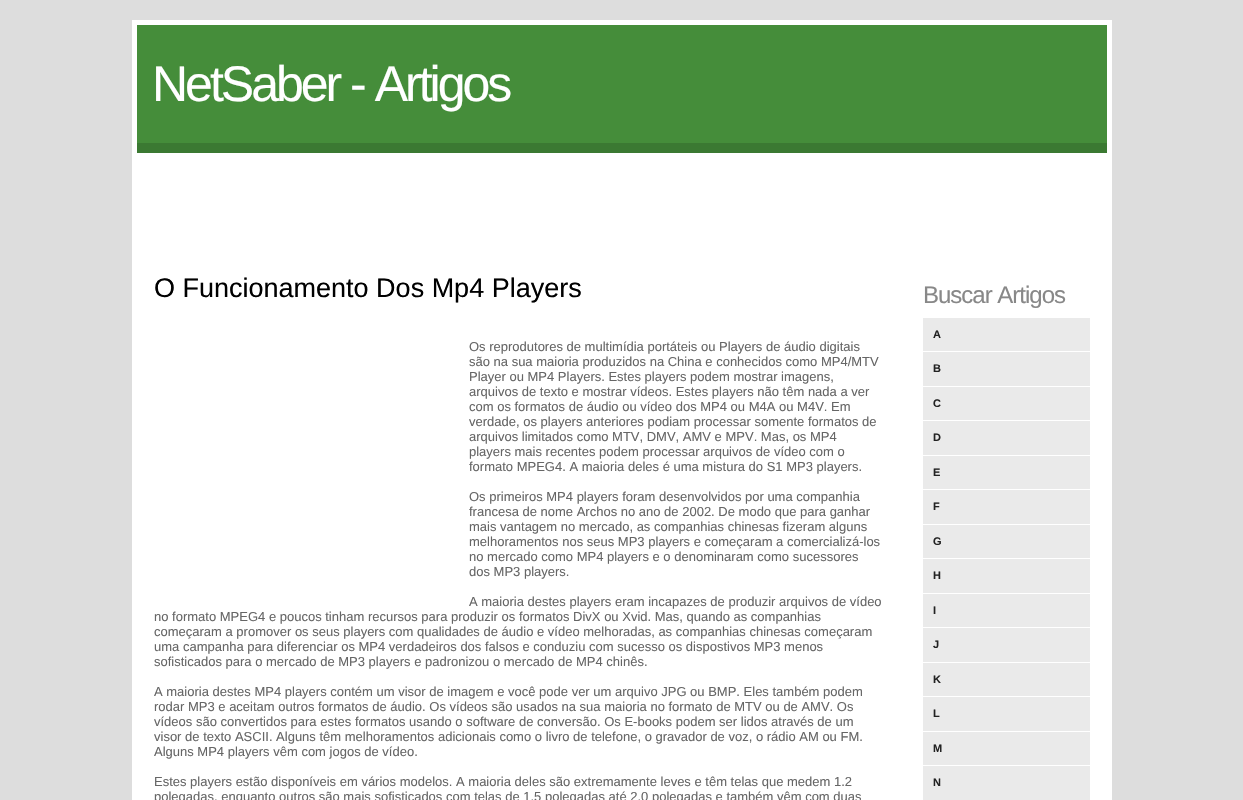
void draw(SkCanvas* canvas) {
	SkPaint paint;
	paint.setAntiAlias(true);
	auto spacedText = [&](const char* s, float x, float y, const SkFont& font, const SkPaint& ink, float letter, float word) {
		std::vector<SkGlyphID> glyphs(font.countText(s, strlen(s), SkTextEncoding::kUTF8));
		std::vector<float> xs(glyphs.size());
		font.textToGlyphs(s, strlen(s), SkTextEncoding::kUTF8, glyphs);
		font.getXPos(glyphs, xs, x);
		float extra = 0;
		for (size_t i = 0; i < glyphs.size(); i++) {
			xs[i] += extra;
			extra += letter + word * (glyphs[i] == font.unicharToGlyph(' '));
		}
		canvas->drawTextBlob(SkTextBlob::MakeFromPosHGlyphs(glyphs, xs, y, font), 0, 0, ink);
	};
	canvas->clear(0xffdddddd);
	paint.setColor(0xffffffff);
	canvas->drawRect(SkRect::MakeXYWH(132, 20, 980, 780), paint);
	paint.setColor(0xff458d3a);
	canvas->drawRect(SkRect::MakeXYWH(137, 25, 970, 118), paint);
	paint.setColor(0xff3b7932);
	canvas->drawRect(SkRect::MakeXYWH(137, 143, 970, 10), paint);
	SkFont f1(fontMgr->matchFamilyStyle("Liberation Sans", SkFontStyle::Normal()), 50);
	f1.setSubpixel(true);
	paint.setColor(0xffffffff);
	spacedText("NetSaber - Artigos", 152, 101, f1, paint, -3, 0);
	SkFont f2(fontMgr->matchFamilyStyle("Liberation Sans", SkFontStyle::Normal()), 27);
	f2.setSubpixel(true);
	paint.setColor(0xff000000);
	canvas->drawString("O Funcionamento Dos Mp4 Players", 154, 297, f2, paint);
	SkFont f3(fontMgr->matchFamilyStyle("Liberation Sans", SkFontStyle::Normal()), 13);
	f3.setSubpixel(true);
	paint.setColor(0xff666666);
	canvas->drawString("Os reprodutores de multimídia portáteis ou Players de áudio digitais", 469, 351, f3, paint);
	canvas->drawString("são na sua maioria produzidos na China e conhecidos como MP4/MTV", 469, 366, f3, paint);
	canvas->drawString("Player ou MP4 Players. Estes players podem mostrar imagens,", 469, 381, f3, paint);
	canvas->drawString("arquivos de texto e mostrar vídeos. Estes players não têm nada a ver", 469, 396, f3, paint);
	canvas->drawString("com os formatos de áudio ou vídeo dos MP4 ou M4A ou M4V. Em", 469, 411, f3, paint);
	canvas->drawString("verdade, os players anteriores podiam processar somente formatos de", 469, 426, f3, paint);
	canvas->drawString("arquivos limitados como MTV, DMV, AMV e MPV. Mas, os MP4", 469, 441, f3, paint);
	canvas->drawString("players mais recentes podem processar arquivos de vídeo com o", 469, 456, f3, paint);
	canvas->drawString("formato MPEG4. A maioria deles é uma mistura do S1 MP3 players.", 469, 471, f3, paint);
	canvas->drawString("Os primeiros MP4 players foram desenvolvidos por uma companhia", 469, 501, f3, paint);
	canvas->drawString("francesa de nome Archos no ano de 2002. De modo que para ganhar", 469, 516, f3, paint);
	canvas->drawString("mais vantagem no mercado, as companhias chinesas fizeram alguns", 469, 531, f3, paint);
	canvas->drawString("melhoramentos nos seus MP3 players e começaram a comercializá-los", 469, 546, f3, paint);
	canvas->drawString("no mercado como MP4 players e o denominaram como sucessores", 469, 561, f3, paint);
	canvas->drawString("dos MP3 players.", 469, 576, f3, paint);
	canvas->drawString("A maioria destes players eram incapazes de produzir arquivos de vídeo", 469, 606, f3, paint);
	canvas->drawString("no formato MPEG4 e poucos tinham recursos para produzir os formatos DivX ou Xvid. Mas, quando as companhias", 154, 621, f3, paint);
	canvas->drawString("começaram a promover os seus players com qualidades de áudio e vídeo melhoradas, as companhias chinesas começaram", 154, 636, f3, paint);
	canvas->drawString("uma campanha para diferenciar os MP4 verdadeiros dos falsos e conduziu com sucesso os dispostivos MP3 menos", 154, 651, f3, paint);
	canvas->drawString("sofisticados para o mercado de MP3 players e padronizou o mercado de MP4 chinês.", 154, 666, f3, paint);
	canvas->drawString("A maioria destes MP4 players contém um visor de imagem e você pode ver um arquivo JPG ou BMP. Eles também podem", 154, 696, f3, paint);
	canvas->drawString("rodar MP3 e aceitam outros formatos de áudio. Os vídeos são usados na sua maioria no formato de MTV ou de AMV. Os", 154, 711, f3, paint);
	canvas->drawString("vídeos são convertidos para estes formatos usando o software de conversão. Os E-books podem ser lidos através de um", 154, 726, f3, paint);
	canvas->drawString("visor de texto ASCII. Alguns têm melhoramentos adicionais como o livro de telefone, o gravador de voz, o rádio AM ou FM.", 154, 741, f3, paint);
	canvas->drawString("Alguns MP4 players vêm com jogos de vídeo.", 154, 756, f3, paint);
	canvas->drawString("Estes players estão disponíveis em vários modelos. A maioria deles são extremamente leves e têm telas que medem 1.2", 154, 786, f3, paint);
	canvas->drawString("polegadas, enquanto outros são mais sofisticados com telas de 1.5 polegadas até 2.0 polegadas e também vêm com duas", 154, 801, f3, paint);
	SkFont f4(fontMgr->matchFamilyStyle("Liberation Sans", SkFontStyle::Normal()), 24);
	f4.setSubpixel(true);
	paint.setColor(0xff888888);
	spacedText("Buscar Artigos", 923, 303, f4, paint, -1, 0);
	paint.setColor(0xffeaeaea);
	canvas->drawRect(SkRect::MakeXYWH(923, 318, 167, 33), paint);
	SkFont f5(fontMgr->matchFamilyStyle("Liberation Sans", SkFontStyle::Bold()), 11);
	f5.setSubpixel(true);
	paint.setColor(0xff222222);
	canvas->drawString("A", 933, 338, f5, paint);
	paint.setColor(0xffeaeaea);
	canvas->drawRect(SkRect::MakeXYWH(923, 352, 167, 34), paint);
	paint.setColor(0xff222222);
	canvas->drawString("B", 933, 372, f5, paint);
	paint.setColor(0xffeaeaea);
	canvas->drawRect(SkRect::MakeXYWH(923, 387, 167, 33), paint);
	paint.setColor(0xff222222);
	canvas->drawString("C", 933, 407, f5, paint);
	paint.setColor(0xffeaeaea);
	canvas->drawRect(SkRect::MakeXYWH(923, 421, 167, 34), paint);
	paint.setColor(0xff222222);
	canvas->drawString("D", 933, 441, f5, paint);
	paint.setColor(0xffeaeaea);
	canvas->drawRect(SkRect::MakeXYWH(923, 456, 167, 33), paint);
	paint.setColor(0xff222222);
	canvas->drawString("E", 933, 476, f5, paint);
	paint.setColor(0xffeaeaea);
	canvas->drawRect(SkRect::MakeXYWH(923, 490, 167, 34), paint);
	paint.setColor(0xff222222);
	canvas->drawString("F", 933, 510, f5, paint);
	paint.setColor(0xffeaeaea);
	canvas->drawRect(SkRect::MakeXYWH(923, 525, 167, 33), paint);
	paint.setColor(0xff222222);
	canvas->drawString("G", 933, 545, f5, paint);
	paint.setColor(0xffeaeaea);
	canvas->drawRect(SkRect::MakeXYWH(923, 559, 167, 34), paint);
	paint.setColor(0xff222222);
	canvas->drawString("H", 933, 579, f5, paint);
	paint.setColor(0xffeaeaea);
	canvas->drawRect(SkRect::MakeXYWH(923, 594, 167, 33), paint);
	paint.setColor(0xff222222);
	canvas->drawString("I", 933, 614, f5, paint);
	paint.setColor(0xffeaeaea);
	canvas->drawRect(SkRect::MakeXYWH(923, 628, 167, 34), paint);
	paint.setColor(0xff222222);
	canvas->drawString("J", 933, 648, f5, paint);
	paint.setColor(0xffeaeaea);
	canvas->drawRect(SkRect::MakeXYWH(923, 663, 167, 33), paint);
	paint.setColor(0xff222222);
	canvas->drawString("K", 933, 683, f5, paint);
	paint.setColor(0xffeaeaea);
	canvas->drawRect(SkRect::MakeXYWH(923, 697, 167, 34), paint);
	paint.setColor(0xff222222);
	canvas->drawString("L", 933, 717, f5, paint);
	paint.setColor(0xffeaeaea);
	canvas->drawRect(SkRect::MakeXYWH(923, 732, 167, 33), paint);
	paint.setColor(0xff222222);
	canvas->drawString("M", 933, 752, f5, paint);
	paint.setColor(0xffeaeaea);
	canvas->drawRect(SkRect::MakeXYWH(923, 766, 167, 34), paint);
	paint.setColor(0xff222222);
	canvas->drawString("N", 933, 786, f5, paint);
}
